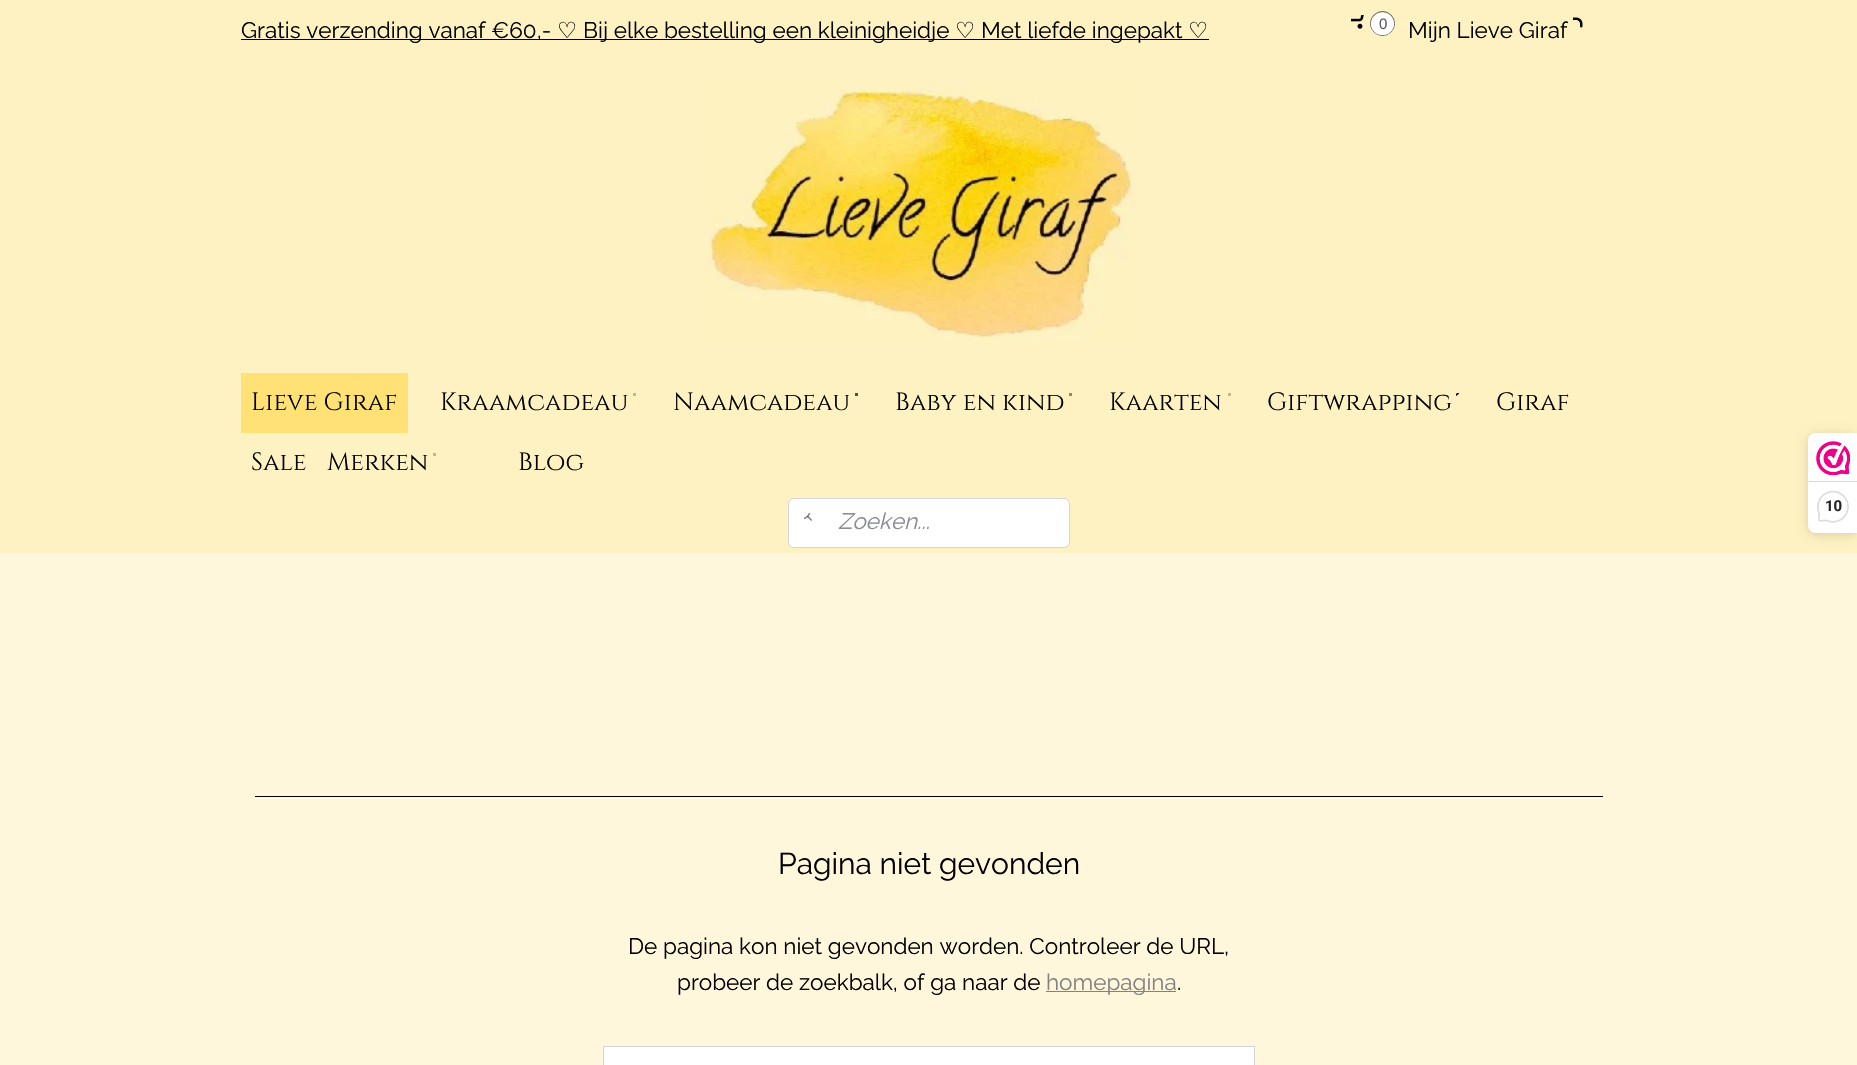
void draw(SkCanvas* canvas) {
	SkPaint paint;
	paint.setAntiAlias(true);
	auto svgPath = [&](const char* data, bool evenOdd = false) {
		SkPath result = *SkParsePath::FromSVGString(data);
		if (evenOdd) result.setFillType(SkPathFillType::kEvenOdd);
		return result;
	};
	canvas->clear(0xfffff7db);
	paint.setColor(0xfffff2c2);
	canvas->drawRect(SkRect::MakeXYWH(0, 0, 1857, 553), paint);
	paint.setColor(0xff000000);
	canvas->drawRect(SkRect::MakeXYWH(241, 39, 968, 1), paint);
	SkFont f1(fontMgr->matchFamilyStyle("Raleway", SkFontStyle::Normal()), 22.5);
	f1.setSubpixel(true);
	canvas->drawString("Gratis verzending vanaf €60,-", 241, 38, f1, paint);
	SkFont f2(fontMgr->matchFamilyStyle("DejaVu Sans", SkFontStyle::Normal()), 22.5);
	f2.setSubpixel(true);
	canvas->drawString("♡", 557, 38, f2, paint);
	canvas->drawString("Bij elke bestelling een kleinigheidje", 583, 38, f1, paint);
	canvas->drawString("♡", 955, 38, f2, paint);
	canvas->drawString("Met liefde ingepakt", 981, 38, f1, paint);
	canvas->drawString("♡", 1188, 38, f2, paint);
	canvas->drawImageRect(SkImages::DeferredFromEncodedData(SkData::MakeFromFileName("img1.png")), SkRect::MakeXYWH(1351, 15, 13, 14), SkSamplingOptions());
	paint.setStroke(true);
	paint.setStrokeWidth(1);
	paint.setColor(0xff575b62);
	canvas->drawCircle(1382.5, 23.5, 12, paint);
	paint.setStroke(false);
	paint.setColor(0xffffffff);
	canvas->drawRoundRect(SkRect::MakeXYWH(1371, 13, 23, 22), 11, 11, paint);
	SkFont f3(fontMgr->matchFamilyStyle("Liberation Sans", SkFontStyle::Normal()), 15);
	f3.setSubpixel(true);
	paint.setColor(0xff575b62);
	canvas->drawString("0", 1379, 29, f3, paint);
	paint.setColor(0xff000000);
	canvas->drawString("Mijn Lieve Giraf", 1408, 38, f1, paint);
	canvas->drawImageRect(SkImages::DeferredFromEncodedData(SkData::MakeFromFileName("img2.png")), SkRect::MakeXYWH(1573, 17, 10, 11), SkSamplingOptions());
	canvas->drawImageRect(SkImages::DeferredFromEncodedData(SkData::MakeFromFileName("img3.png")), SkRect::MakeXYWH(706, 80, 432, 260), SkSamplingOptions());
	paint.setColor(0xffffe175);
	canvas->drawRect(SkRect::MakeXYWH(241, 373, 167, 60), paint);
	SkFont f4(fontMgr->matchFamilyStyle("Cinzel", SkFontStyle::Normal()), 25);
	f4.setSubpixel(true);
	paint.setColor(0xff000000);
	canvas->drawString("Lieve Giraf", 251, 410, f4, paint);
	canvas->drawString("Kraamcadeau", 440, 410, f4, paint);
	paint.setColor(0xffbfb692);
	canvas->drawRect(SkRect::MakeXYWH(633, 393, 3, 3), paint);
	paint.setColor(0xff000000);
	canvas->drawString("Naamcadeau", 673, 410, f4, paint);
	paint.setColor(0xff545040);
	canvas->drawRect(SkRect::MakeXYWH(855, 393, 3, 3), paint);
	paint.setColor(0xff000000);
	canvas->drawString("Baby en kind", 895, 410, f4, paint);
	paint.setColor(0xff918a6f);
	canvas->drawRect(SkRect::MakeXYWH(1069, 393, 3, 3), paint);
	paint.setColor(0xff000000);
	canvas->drawString("Kaarten", 1109, 410, f4, paint);
	paint.setColor(0xffbfb692);
	canvas->drawRect(SkRect::MakeXYWH(1228, 393, 3, 3), paint);
	paint.setColor(0xff000000);
	canvas->drawString("Giftwrapping", 1267, 410, f4, paint);
	canvas->drawImageRect(SkImages::DeferredFromEncodedData(SkData::MakeFromFileName("img4.png")), SkRect::MakeXYWH(1456, 393, 4, 3), SkSamplingOptions());
	canvas->drawString("Giraf", 1496, 410, f4, paint);
	canvas->drawString("Sale", 251, 470, f4, paint);
	canvas->drawString("Merken", 327, 470, f4, paint);
	paint.setColor(0xffbfb692);
	canvas->drawRect(SkRect::MakeXYWH(433, 453, 3, 3), paint);
	paint.setColor(0xff000000);
	canvas->drawString("Blog", 518, 470, f4, paint);
	paint.setColor(0xffffffff);
	canvas->drawRoundRect(SkRect::MakeXYWH(788.5, 498.5, 281, 49), 5.5, 5.5, paint);
	paint.setStroke(true);
	paint.setColor(0xffd3d5d9);
	canvas->drawRoundRect(SkRect::MakeXYWH(788.5, 498.5, 281, 49), 5.5, 5.5, paint);
	canvas->drawImageRect(SkImages::DeferredFromEncodedData(SkData::MakeFromFileName("img5.png")), SkRect::MakeXYWH(804, 513, 8, 8), SkSamplingOptions());
	SkFont f5(fontMgr->matchFamilyStyle("Raleway", SkFontStyle::Italic()), 22.5);
	f5.setSubpixel(true);
	paint.setStroke(false);
	paint.setColor(0xff898c91);
	canvas->drawString("Zoeken...", 838, 529, f5, paint);
	paint.setColor(0xff000000);
	canvas->drawRect(SkRect::MakeXYWH(255, 796, 1348, 1), paint);
	SkFont f6(fontMgr->matchFamilyStyle("Raleway", SkFontStyle::Normal()), 30);
	f6.setSubpixel(true);
	canvas->drawString("Pagina niet gevonden", 778, 874, f6, paint);
	canvas->drawString("De pagina kon niet gevonden worden. Controleer de URL,", 628, 954, f1, paint);
	canvas->drawString("probeer de zoekbalk, of ga naar de", 677, 990, f1, paint);
	paint.setColor(0xff828282);
	canvas->drawRect(SkRect::MakeXYWH(1046, 991, 130, 1), paint);
	canvas->drawString("homepagina", 1046, 990, f1, paint);
	paint.setColor(0xff000000);
	canvas->drawString(".", 1177, 990, f1, paint);
	paint.setColor(0xffffffff);
	canvas->drawRect(SkRect::MakeXYWH(603.5, 1046.5, 651, 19), paint);
	paint.setStroke(true);
	paint.setColor(0xffd3d5d9);
	canvas->drawRect(SkRect::MakeXYWH(603.5, 1046.5, 651, 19), paint);
	paint.setStroke(false);
	paint.setColor(0x26000000);
	paint.setMaskFilter(SkMaskFilter::MakeBlur(kNormal_SkBlurStyle, 6));
	canvas->drawRoundRect(SkRect::MakeXYWH(1808, 435, 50, 100), 8, 8, paint);
	paint.setMaskFilter(nullptr);
	paint.setColor(0xffffffff);
	canvas->drawPath(svgPath("M1816 433H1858V533H1816C1811.5 533 1808 529.5 1808 525V441C1808 436.5 1811.5 433 1816 433Z"), paint);
	canvas->drawImageRect(SkImages::DeferredFromEncodedData(SkData::MakeFromFileName("img6.png")), SkRect::MakeXYWH(1816, 441, 34, 34), SkSamplingOptions());
	paint.setColor(0xffd9d9d9);
	canvas->drawRect(SkRect::MakeXYWH(1809, 481, 48, 1), paint);
	canvas->drawImageRect(SkImages::DeferredFromEncodedData(SkData::MakeFromFileName("img7.png")), SkRect::MakeXYWH(1817, 490, 32, 33), SkSamplingOptions());
	SkFont f7(fontMgr->matchFamilyStyle("Roboto", SkFontStyle::Bold()), 15);
	f7.setSubpixel(true);
	paint.setColor(0xff272626);
	canvas->drawString("10", 1825, 511, f7, paint);
}
